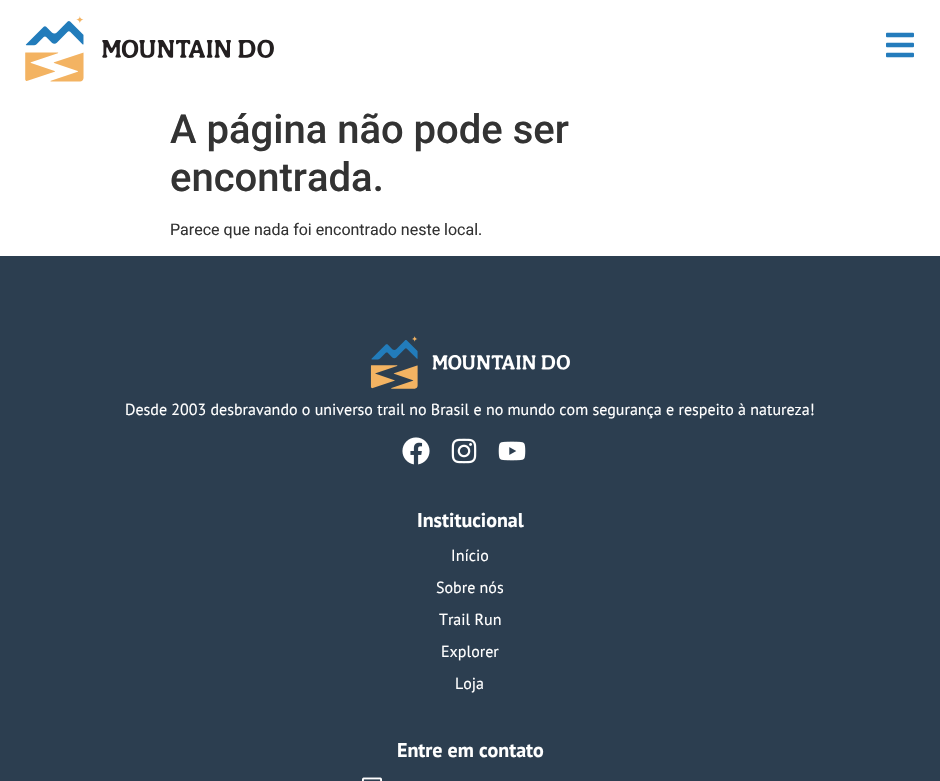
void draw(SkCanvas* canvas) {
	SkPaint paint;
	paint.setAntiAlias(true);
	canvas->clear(0xffffffff);
	canvas->drawImageRect(SkImages::DeferredFromEncodedData(SkData::MakeFromFileName("img1.png")), SkRect::MakeXYWH(25, 16, 249, 66), SkSamplingOptions());
	canvas->drawImageRect(SkImages::DeferredFromEncodedData(SkData::MakeFromFileName("img2.png")), SkRect::MakeXYWH(886, 32, 28, 26), SkSamplingOptions());
	SkFont f1(fontMgr->matchFamilyStyle("Roboto", SkFontStyle(500, SkFontStyle::kNormal_Width, SkFontStyle::kUpright_Slant)), 40);
	f1.setSubpixel(true);
	paint.setColor(0xff333333);
	canvas->drawString("A página não pode ser", 170, 143, f1, paint);
	canvas->drawString("encontrada.", 170, 191, f1, paint);
	SkFont f2(fontMgr->matchFamilyStyle("Roboto", SkFontStyle::Normal()), 16);
	f2.setSubpixel(true);
	canvas->drawString("Parece que nada foi encontrado neste local.", 170, 235, f2, paint);
	paint.setColor(0xff2c3e50);
	canvas->drawRect(SkRect::MakeXYWH(0, 256, 940, 525), paint);
	canvas->drawImageRect(SkImages::DeferredFromEncodedData(SkData::MakeFromFileName("img3.png")), SkRect::MakeXYWH(370, 336, 200, 53), SkSamplingOptions());
	SkFont f3(fontMgr->matchFamilyStyle("PT Sans", SkFontStyle::Normal()), 16);
	f3.setSubpixel(true);
	paint.setColor(0xffffffff);
	canvas->drawString("Desde 2003 desbravando o universo trail no Brasil e no mundo com segurança e respeito à natureza!", 125, 415, f3, paint);
	canvas->drawImageRect(SkImages::DeferredFromEncodedData(SkData::MakeFromFileName("img4.png")), SkRect::MakeXYWH(402, 437, 28, 28), SkSamplingOptions());
	canvas->drawImageRect(SkImages::DeferredFromEncodedData(SkData::MakeFromFileName("img5.png")), SkRect::MakeXYWH(451, 438, 26, 26), SkSamplingOptions());
	canvas->drawImageRect(SkImages::DeferredFromEncodedData(SkData::MakeFromFileName("img6.png")), SkRect::MakeXYWH(498, 441, 28, 20), SkSamplingOptions());
	SkFont f4(fontMgr->matchFamilyStyle("PT Sans", SkFontStyle::Bold()), 20);
	f4.setSubpixel(true);
	canvas->drawString("Institucional", 417, 527, f4, paint);
	canvas->drawString("Início", 451, 561, f3, paint);
	canvas->drawString("Sobre nós", 436, 593, f3, paint);
	canvas->drawString("Trail Run", 439, 625, f3, paint);
	canvas->drawString("Explorer", 441, 657, f3, paint);
	canvas->drawString("Loja", 455, 689, f3, paint);
	canvas->drawString("Entre em contato", 397, 757, f4, paint);
	canvas->drawImageRect(SkImages::DeferredFromEncodedData(SkData::MakeFromFileName("img7.png")), SkRect::MakeXYWH(362, 777, 20, 4), SkSamplingOptions());
}
